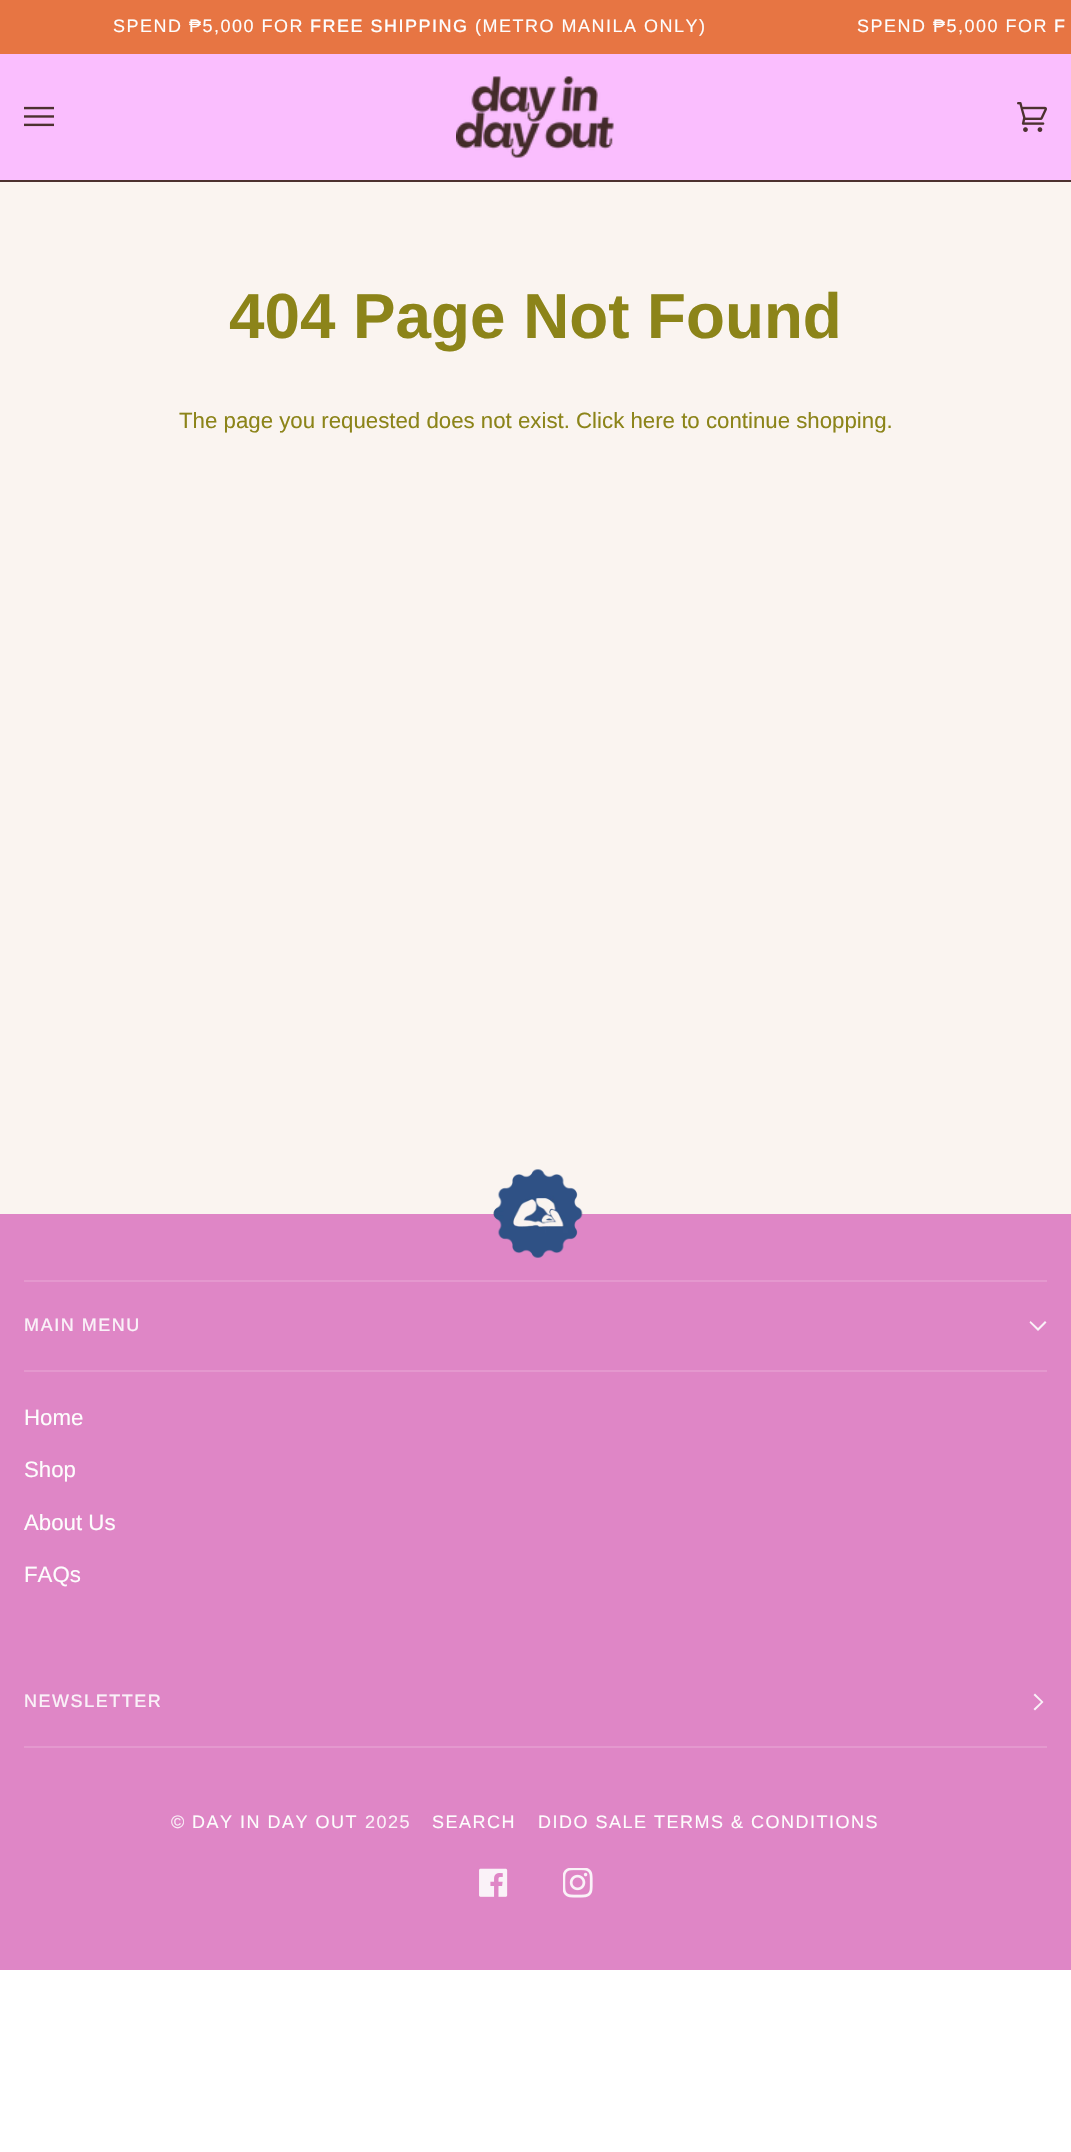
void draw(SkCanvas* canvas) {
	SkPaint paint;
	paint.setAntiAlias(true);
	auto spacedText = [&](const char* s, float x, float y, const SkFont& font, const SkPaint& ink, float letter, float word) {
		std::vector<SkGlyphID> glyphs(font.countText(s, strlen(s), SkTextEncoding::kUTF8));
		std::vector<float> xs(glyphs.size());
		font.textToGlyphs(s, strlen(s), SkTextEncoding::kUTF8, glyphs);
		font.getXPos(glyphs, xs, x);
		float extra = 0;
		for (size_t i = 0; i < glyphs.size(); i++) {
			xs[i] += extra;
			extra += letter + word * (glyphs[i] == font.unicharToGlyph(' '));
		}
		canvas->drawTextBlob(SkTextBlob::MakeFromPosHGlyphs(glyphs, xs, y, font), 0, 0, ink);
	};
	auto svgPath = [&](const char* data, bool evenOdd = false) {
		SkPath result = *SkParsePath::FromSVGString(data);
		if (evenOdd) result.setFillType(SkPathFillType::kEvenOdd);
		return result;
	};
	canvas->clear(0xffffffff);
	paint.setColor(0xffe77543);
	canvas->drawRect(SkRect::MakeXYWH(0, 0, 1071, 54), paint);
	SkFont f1(fontMgr->matchFamilyStyle("Arimo", SkFontStyle::Normal()), 18);
	f1.setSubpixel(true);
	paint.setColor(0xfffdfdfd);
	spacedText("SPEND ₱5,000 FOR", 113, 32, f1, paint, 1.5, 0);
	SkFont f2(fontMgr->matchFamilyStyle("Arimo", SkFontStyle(500, SkFontStyle::kNormal_Width, SkFontStyle::kUpright_Slant)), 18);
	f2.setSubpixel(true);
	spacedText("FREE SHIPPING", 310, 32, f2, paint, 1.5, 0);
	spacedText("(METRO MANILA ONLY)", 475, 32, f1, paint, 1.5, 0);
	spacedText("SPEND ₱5,000 FOR", 857, 32, f1, paint, 1.5, 0);
	spacedText("F", 1054, 32, f2, paint, 1.5, 0);
	paint.setColor(0xfffabefe);
	canvas->drawRect(SkRect::MakeXYWH(0, 54, 1071, 126), paint);
	paint.setColor(0xff4c312f);
	canvas->drawRect(SkRect::MakeXYWH(0, 180, 1071, 2), paint);
	canvas->drawImageRect(SkImages::DeferredFromEncodedData(SkData::MakeFromFileName("img1.png")), SkRect::MakeXYWH(24, 106, 30, 21), SkSamplingOptions());
	canvas->drawImageRect(SkImages::DeferredFromEncodedData(SkData::MakeFromFileName("img2.png")), SkRect::MakeXYWH(456, 76, 158, 82), SkSamplingOptions());
	canvas->drawImageRect(SkImages::DeferredFromEncodedData(SkData::MakeFromFileName("img3.png")), SkRect::MakeXYWH(1017, 102, 30, 30), SkSamplingOptions());
	paint.setColor(0xfffaf4f0);
	canvas->drawRect(SkRect::MakeXYWH(0, 182, 1071, 1032), paint);
	SkFont f3(fontMgr->matchFamilyStyle("Arimo", SkFontStyle::Bold()), 63.75);
	f3.setSubpixel(true);
	paint.setColor(0xff8c8419);
	canvas->drawString("404 Page Not Found", 229, 338, f3, paint);
	SkFont f4(fontMgr->matchFamilyStyle("Arimo", SkFontStyle::Normal()), 22.25);
	f4.setSubpixel(true);
	canvas->drawString("The page you requested does not exist. Click here to continue shopping.", 179, 428, f4, paint);
	paint.setColor(0xffdf86c6);
	canvas->drawRect(SkRect::MakeXYWH(0, 1214, 1071, 756), paint);
	canvas->drawImageRect(SkImages::DeferredFromEncodedData(SkData::MakeFromFileName("img4.png")), SkRect::MakeXYWH(493, 1169, 90, 89), SkSamplingOptions());
	paint.setColor(0xffe498ce);
	canvas->drawRect(SkRect::MakeXYWH(24, 1280, 1023, 2), paint);
	canvas->drawRect(SkRect::MakeXYWH(24, 1370, 1023, 2), paint);
	paint.setColor(0xfffaf1f8);
	spacedText("MAIN MENU", 24, 1331, f2, paint, 1.5, 0);
	canvas->drawPath(svgPath("M1038 1328L1045 1321L1046.5 1322.5L1038 1331L1029.5 1322.5L1030.5 1321Z", true), paint);
	paint.setColor(0xfffdfdfd);
	canvas->drawString("Home", 24, 1425, f4, paint);
	canvas->drawString("Shop", 24, 1477, f4, paint);
	canvas->drawString("About Us", 24, 1530, f4, paint);
	canvas->drawString("FAQs", 24, 1582, f4, paint);
	paint.setColor(0xffe498ce);
	canvas->drawRect(SkRect::MakeXYWH(24, 1746, 1023, 2), paint);
	paint.setColor(0xfffaf1f8);
	spacedText("NEWSLETTER", 24, 1707, f2, paint, 1.5, 0);
	canvas->drawPath(svgPath("M1041 1702L1033.5 1695L1035 1693.5L1043.5 1702L1035 1710.5L1033.5 1709Z", true), paint);
	spacedText("©", 171, 1828, f1, paint, 1.5, 0);
	paint.setColor(0xfffdfdfd);
	spacedText("DAY IN DAY OUT", 192, 1828, f1, paint, 1.5, 0);
	paint.setColor(0xfffaf1f8);
	spacedText("2025", 365, 1828, f1, paint, 1.5, 0);
	paint.setColor(0xfffdfdfd);
	spacedText("SEARCH", 432, 1828, f1, paint, 1.5, 0);
	spacedText("DIDO SALE TERMS & CONDITIONS", 538, 1828, f1, paint, 1.5, 0);
	canvas->drawImageRect(SkImages::DeferredFromEncodedData(SkData::MakeFromFileName("img5.png")), SkRect::MakeXYWH(479, 1868, 29, 29), SkSamplingOptions());
	canvas->drawImageRect(SkImages::DeferredFromEncodedData(SkData::MakeFromFileName("img6.png")), SkRect::MakeXYWH(563, 1868, 30, 30), SkSamplingOptions());
}
